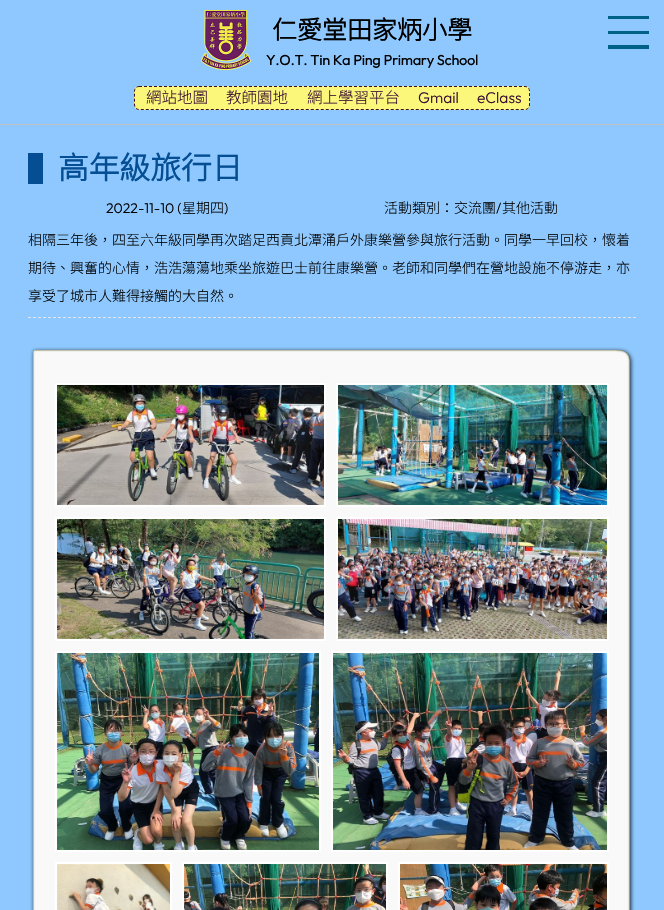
void draw(SkCanvas* canvas) {
	SkPaint paint;
	paint.setAntiAlias(true);
	auto svgPath = [&](const char* data, bool evenOdd = false) {
		SkPath result = *SkParsePath::FromSVGString(data);
		if (evenOdd) result.setFillType(SkPathFillType::kEvenOdd);
		return result;
	};
	canvas->clear(0xff8ec8fe);
	paint.setColor(0xffc0c1c2);
	canvas->drawRect(SkRect::MakeXYWH(0, 124, 664, 1), paint);
	paint.setColor(0xff006187);
	canvas->drawRect(SkRect::MakeXYWH(608, 31, 41, 3), paint);
	canvas->drawRect(SkRect::MakeXYWH(608, 16, 41, 3), paint);
	canvas->drawRect(SkRect::MakeXYWH(608, 45, 41, 4), paint);
	canvas->drawImageRect(SkImages::DeferredFromEncodedData(SkData::MakeFromFileName("img1.png")), SkRect::MakeXYWH(201, 10, 50, 60), SkSamplingOptions());
	SkFont f1(fontMgr->matchFamilyStyle("Noto Sans HK", SkFontStyle::Bold()), 25);
	f1.setSubpixel(true);
	paint.setColor(0xff000000);
	canvas->drawString("仁愛堂田家炳小學", 272, 39, f1, paint);
	SkFont f2(fontMgr->matchFamilyStyle("Outfit", SkFontStyle::Bold()), 14);
	f2.setSubpixel(true);
	canvas->drawString("Y.O.T. Tin Ka Ping Primary School", 266, 65, f2, paint);
	paint.setColor(0xfffbf77a);
	canvas->drawRoundRect(SkRect::MakeXYWH(134, 86, 396, 24), 5, 5, paint);
	paint.setStroke(true);
	paint.setStrokeWidth(1);
	paint.setColor(0xff380d31);
	paint.setPathEffect(SkDashPathEffect::Make({{3, 2}}, 0));
	canvas->drawPath(svgPath("M139 86.5H525C527.5 86.5 529.5 88.5 529.5 91V105C529.5 107.5 527.5 109.5 525 109.5H139C136.5 109.5 134.5 107.5 134.5 105V91C134.5 88.5 136.5 86.5 139 86.5Z"), paint);
	paint.setPathEffect(nullptr);
	SkFont f3(fontMgr->matchFamilyStyle("Noto Sans HK", SkFontStyle(100, SkFontStyle::kNormal_Width, SkFontStyle::kUpright_Slant)), 15.5);
	f3.setSubpixel(true);
	paint.setStroke(false);
	canvas->drawString("網站地圖", 146, 103, f3, paint);
	canvas->drawString("教師園地", 226, 103, f3, paint);
	canvas->drawString("網上學習平台", 307, 103, f3, paint);
	SkFont f4(fontMgr->matchFamilyStyle("Outfit", SkFontStyle(100, SkFontStyle::kNormal_Width, SkFontStyle::kUpright_Slant)), 15.5);
	f4.setSubpixel(true);
	canvas->drawString("Gmail", 418, 103, f4, paint);
	canvas->drawString("eClass", 477, 103, f4, paint);
	paint.setColor(0xff054e93);
	canvas->drawRect(SkRect::MakeXYWH(28, 153, 15, 31), paint);
	SkFont f5(fontMgr->matchFamilyStyle("Noto Sans HK", SkFontStyle::Bold()), 30.75);
	f5.setSubpixel(true);
	canvas->drawString("高年級旅行日", 58, 179, f5, paint);
	SkFont f6(fontMgr->matchFamilyStyle("Outfit", SkFontStyle(100, SkFontStyle::kNormal_Width, SkFontStyle::kUpright_Slant)), 14);
	f6.setSubpixel(true);
	paint.setColor(0xff000000);
	canvas->drawString("2022-11-10 (", 106, 213, f6, paint);
	SkFont f7(fontMgr->matchFamilyStyle("Noto Sans HK", SkFontStyle(100, SkFontStyle::kNormal_Width, SkFontStyle::kUpright_Slant)), 14);
	f7.setSubpixel(true);
	canvas->drawString("星期四", 182, 213, f7, paint);
	canvas->drawString(")", 224, 213, f6, paint);
	canvas->drawString("活動類別：交流團", 384, 213, f7, paint);
	canvas->drawString("/", 496, 213, f6, paint);
	canvas->drawString("其他活動", 502, 213, f7, paint);
	paint.setStroke(true);
	paint.setColor(0xffe5e5e5);
	paint.setPathEffect(SkDashPathEffect::Make({{3, 2}}, 0));
	canvas->drawPath(svgPath("M28 317.5H636"), paint);
	paint.setPathEffect(nullptr);
	paint.setStroke(false);
	paint.setColor(0xff000000);
	canvas->drawString("相隔三年後，四至六年級同學再次踏足西貢北潭涌戶外康樂營參與旅行活動。同學一早回校，懷着", 28, 245, f7, paint);
	canvas->drawString("期待、興奮的心情，浩浩蕩蕩地乘坐旅遊巴士前往康樂營。老師和同學們在營地設施不停游走，亦", 28, 273, f7, paint);
	canvas->drawString("享受了城市人難得接觸的大自然。", 28, 301, f7, paint);
	canvas->drawImageRect(SkImages::DeferredFromEncodedData(SkData::MakeFromFileName("img2.png")), SkRect::MakeXYWH(30, 347, 605, 563), SkSamplingOptions());
	paint.setStroke(true);
	paint.setStrokeWidth(2);
	paint.setColor(0xffffffff);
	canvas->drawRect(SkRect::MakeXYWH(56, 384, 269, 122), paint);
	canvas->drawImageRect(SkImages::DeferredFromEncodedData(SkData::MakeFromFileName("img3.png")), SkRect::MakeXYWH(57, 385, 267, 120), SkSamplingOptions());
	canvas->drawRect(SkRect::MakeXYWH(337, 384, 271, 122), paint);
	canvas->drawImageRect(SkImages::DeferredFromEncodedData(SkData::MakeFromFileName("img4.png")), SkRect::MakeXYWH(338, 385, 269, 120), SkSamplingOptions());
	canvas->drawRect(SkRect::MakeXYWH(56, 518, 269, 122), paint);
	canvas->drawImageRect(SkImages::DeferredFromEncodedData(SkData::MakeFromFileName("img5.png")), SkRect::MakeXYWH(57, 519, 267, 120), SkSamplingOptions());
	canvas->drawRect(SkRect::MakeXYWH(337, 518, 271, 122), paint);
	canvas->drawImageRect(SkImages::DeferredFromEncodedData(SkData::MakeFromFileName("img6.png")), SkRect::MakeXYWH(338, 519, 269, 120), SkSamplingOptions());
	canvas->drawRect(SkRect::MakeXYWH(56, 652, 264, 199), paint);
	canvas->drawImageRect(SkImages::DeferredFromEncodedData(SkData::MakeFromFileName("img7.png")), SkRect::MakeXYWH(57, 653, 262, 197), SkSamplingOptions());
	canvas->drawRect(SkRect::MakeXYWH(332, 652, 276, 199), paint);
	canvas->drawImageRect(SkImages::DeferredFromEncodedData(SkData::MakeFromFileName("img8.png")), SkRect::MakeXYWH(333, 653, 274, 197), SkSamplingOptions());
	canvas->drawRect(SkRect::MakeXYWH(56, 863, 115, 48), paint);
	canvas->drawImageRect(SkImages::DeferredFromEncodedData(SkData::MakeFromFileName("img9.png")), SkRect::MakeXYWH(57, 864, 113, 46), SkSamplingOptions());
	canvas->drawRect(SkRect::MakeXYWH(183, 863, 204, 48), paint);
	canvas->drawImageRect(SkImages::DeferredFromEncodedData(SkData::MakeFromFileName("img10.png")), SkRect::MakeXYWH(184, 864, 202, 46), SkSamplingOptions());
	canvas->drawRect(SkRect::MakeXYWH(399, 863, 209, 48), paint);
	canvas->drawImageRect(SkImages::DeferredFromEncodedData(SkData::MakeFromFileName("img11.png")), SkRect::MakeXYWH(400, 864, 207, 46), SkSamplingOptions());
}
